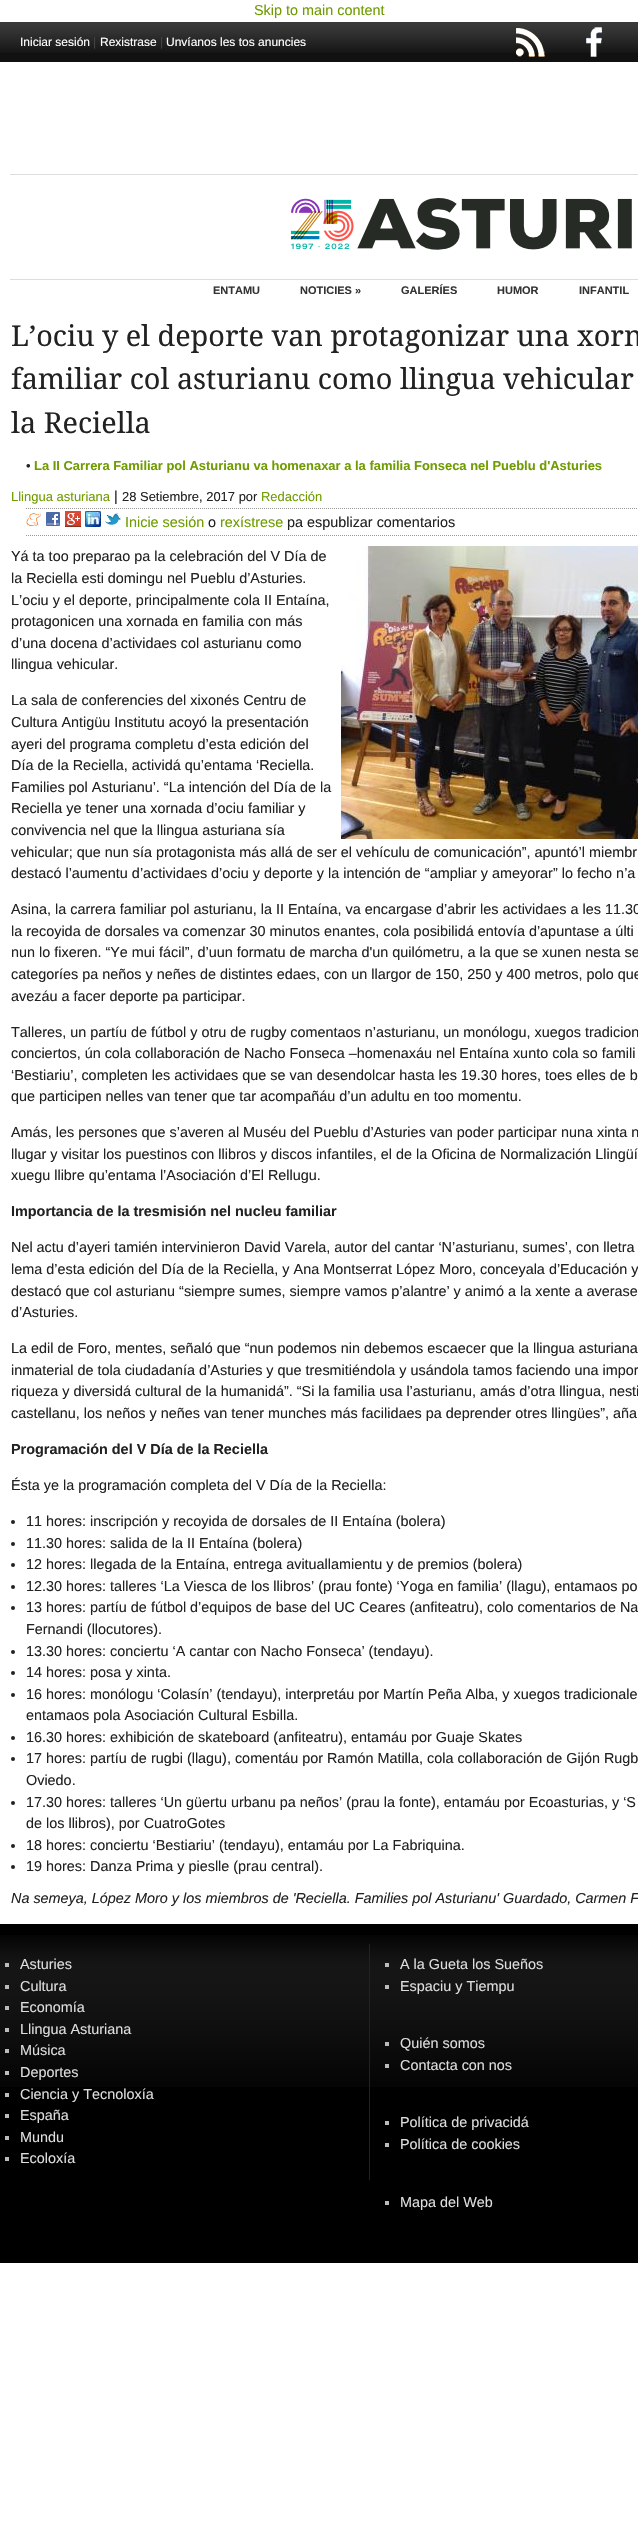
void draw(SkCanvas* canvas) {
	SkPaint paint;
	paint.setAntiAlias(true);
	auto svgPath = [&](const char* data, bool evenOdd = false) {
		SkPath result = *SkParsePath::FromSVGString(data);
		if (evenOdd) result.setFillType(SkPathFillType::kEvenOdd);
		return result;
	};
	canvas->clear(0xffffffff);
	SkFont f1(fontMgr->matchFamilyStyle("Liberation Sans", SkFontStyle::Normal()), 14.4);
	f1.setSubpixel(true);
	paint.setColor(0xff6f9c00);
	canvas->drawString("Skip to main content", 254, 15, f1, paint);
	paint.setColor(0xff111111);
	canvas->drawRect(SkRect::MakeXYWH(0, 53, 638, 9), paint);
	canvas->drawImageRect(SkImages::DeferredFromEncodedData(SkData::MakeFromFileName("img1.png")), SkRect::MakeXYWH(0, 22, 638, 31), SkSamplingOptions());
	SkFont f2(fontMgr->matchFamilyStyle("Liberation Sans", SkFontStyle::Normal()), 12);
	f2.setSubpixel(true);
	paint.setColor(0xffffffff);
	canvas->drawString("Iniciar sesión", 20, 46, f2, paint);
	paint.setColor(0xff444444);
	canvas->drawString("|", 93, 46, f2, paint);
	paint.setColor(0xffffffff);
	canvas->drawString("Rexistrase", 100, 46, f2, paint);
	paint.setColor(0xff444444);
	canvas->drawString("|", 160, 46, f2, paint);
	paint.setColor(0xffffffff);
	canvas->drawString("Unvíanos les tos anuncies", 166, 46, f2, paint);
	canvas->drawImageRect(SkImages::DeferredFromEncodedData(SkData::MakeFromFileName("img2.png")), SkRect::MakeXYWH(516, 28, 29, 29), SkSamplingOptions());
	canvas->drawImageRect(SkImages::DeferredFromEncodedData(SkData::MakeFromFileName("img3.png")), SkRect::MakeXYWH(586, 27, 16, 30), SkSamplingOptions());
	paint.setColor(0xffdddddd);
	canvas->drawRect(SkRect::MakeXYWH(10, 174, 628, 1), paint);
	canvas->drawImageRect(SkImages::DeferredFromEncodedData(SkData::MakeFromFileName("img4.png")), SkRect::MakeXYWH(290, 198, 342, 52), SkSamplingOptions());
	canvas->drawRect(SkRect::MakeXYWH(10, 279, 628, 1), paint);
	SkFont f3(fontMgr->matchFamilyStyle("Liberation Sans", SkFontStyle::Bold()), 11);
	f3.setSubpixel(true);
	paint.setColor(0xff333333);
	canvas->drawString("ENTAMU", 213, 294, f3, paint);
	canvas->drawString("NOTICIES »", 300, 294, f3, paint);
	canvas->drawString("GALERÍES", 401, 294, f3, paint);
	canvas->drawString("HUMOR", 497, 294, f3, paint);
	canvas->drawString("INFANTIL", 579, 294, f3, paint);
	SkFont f4(fontMgr->matchFamilyStyle("Droid Serif", SkFontStyle::Normal()), 28.8);
	f4.setSubpixel(true);
	paint.setColor(0xff222222);
	canvas->drawString("L’ociu y el deporte van protagonizar una xorn", 11, 346, f4, paint);
	canvas->drawString("familiar col asturianu como llingua vehicular", 11, 389, f4, paint);
	canvas->drawString("la Reciella", 11, 433, f4, paint);
	SkFont f5(fontMgr->matchFamilyStyle("Liberation Sans", SkFontStyle::Normal()), 13);
	f5.setSubpixel(true);
	canvas->drawString("•", 26, 470, f5, paint);
	SkFont f6(fontMgr->matchFamilyStyle("Liberation Sans", SkFontStyle::Bold()), 12.95);
	f6.setSubpixel(true);
	paint.setColor(0xff6f9c00);
	canvas->drawString("La II Carrera Familiar pol Asturianu va homenaxar a la familia Fonseca nel Pueblu d'Asturies", 34, 470, f6, paint);
	canvas->drawString("Llingua asturiana", 11, 501, f5, paint);
	paint.setColor(0xff222222);
	canvas->drawString("|", 114, 501, f1, paint);
	SkFont f7(fontMgr->matchFamilyStyle("Liberation Sans", SkFontStyle::Normal()), 12.95);
	f7.setSubpixel(true);
	canvas->drawString("28 Setiembre, 2017 por", 122, 501, f7, paint);
	paint.setColor(0xff6f9c00);
	canvas->drawString("Redacción", 261, 501, f7, paint);
	paint.setStroke(true);
	paint.setStrokeWidth(1);
	paint.setColor(0xff999999);
	paint.setPathEffect(SkDashPathEffect::Make({{1, 1}}, 0));
	canvas->drawPath(svgPath("M26 508.5H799"), paint);
	paint.setPathEffect(nullptr);
	paint.setPathEffect(SkDashPathEffect::Make({{1, 1}}, 0));
	canvas->drawPath(svgPath("M26 535.5H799"), paint);
	paint.setPathEffect(nullptr);
	canvas->drawImageRect(SkImages::DeferredFromEncodedData(SkData::MakeFromFileName("img5.png")), SkRect::MakeXYWH(26, 512, 15, 15), SkSamplingOptions());
	canvas->drawImageRect(SkImages::DeferredFromEncodedData(SkData::MakeFromFileName("img6.png")), SkRect::MakeXYWH(46, 512, 14, 14), SkSamplingOptions());
	canvas->drawImageRect(SkImages::DeferredFromEncodedData(SkData::MakeFromFileName("img7.png")), SkRect::MakeXYWH(65, 511, 16, 16), SkSamplingOptions());
	canvas->drawImageRect(SkImages::DeferredFromEncodedData(SkData::MakeFromFileName("img8.png")), SkRect::MakeXYWH(85, 511, 16, 16), SkSamplingOptions());
	canvas->drawImageRect(SkImages::DeferredFromEncodedData(SkData::MakeFromFileName("img9.png")), SkRect::MakeXYWH(105, 513, 16, 12), SkSamplingOptions());
	paint.setStroke(false);
	paint.setColor(0xff6f9c00);
	canvas->drawString("Inicie sesión", 125, 527, f1, paint);
	paint.setColor(0xff222222);
	canvas->drawString("o", 208, 527, f1, paint);
	paint.setColor(0xff6f9c00);
	canvas->drawString("rexístrese", 220, 527, f1, paint);
	paint.setColor(0xff222222);
	canvas->drawString("pa espublizar comentarios", 287, 527, f1, paint);
	canvas->drawImageRect(SkImages::DeferredFromEncodedData(SkData::MakeFromFileName("img10.png")), SkRect::MakeXYWH(341, 546, 297, 293), SkSamplingOptions());
	canvas->drawString("Yá ta too preparao pa la celebración del V Día de", 11, 561, f1, paint);
	canvas->drawString("la Reciella esti domingu nel Pueblu d’Asturies.", 11, 583, f1, paint);
	canvas->drawString("L’ociu y el deporte, principalmente cola II Entaína,", 11, 605, f1, paint);
	canvas->drawString("protagonicen una xornada en familia con más", 11, 626, f1, paint);
	canvas->drawString("d’una docena d’actividaes col asturianu como", 11, 648, f1, paint);
	canvas->drawString("llingua vehicular.", 11, 669, f1, paint);
	canvas->drawString("La sala de conferencies del xixonés Centru de", 11, 705, f1, paint);
	canvas->drawString("Cultura Antigüu Institutu acoyó la presentación", 11, 727, f1, paint);
	canvas->drawString("ayeri del programa completu d’esta edición del", 11, 749, f1, paint);
	canvas->drawString("Día de la Reciella, actividá qu’entama ‘Reciella.", 11, 770, f1, paint);
	canvas->drawString("Families pol Asturianu’. “La intención del Día de la", 11, 792, f1, paint);
	canvas->drawString("Reciella ye tener una xornada d’ociu familiar y", 11, 813, f1, paint);
	canvas->drawString("convivencia nel que la llingua asturiana sía", 11, 835, f1, paint);
	canvas->drawString("vehicular; que nun sía protagonista más allá de ser el vehículu de comunicación”, apuntó’l miembr", 11, 857, f1, paint);
	canvas->drawString("destacó l’aumentu d’actividaes d’ociu y deporte y la intención de “ampliar y ameyorar” lo fecho n’a", 11, 878, f1, paint);
	canvas->drawString("Asina, la carrera familiar pol asturianu, la II Entaína, va encargase d’abrir les actividaes a les 11.30", 11, 914, f1, paint);
	canvas->drawString("la recoyida de dorsales va comenzar 30 minutos enantes, cola posibilidá entovía d’apuntase a últi", 11, 936, f1, paint);
	canvas->drawString("nun lo fixeren. “Ye mui fácil”, d’uun formatu de marcha d'un quilómetru, a la que se xunen nesta se", 11, 957, f1, paint);
	canvas->drawString("categoríes pa neños y neñes de distintes edaes, con un llargor de 150, 250 y 400 metros, polo que", 11, 979, f1, paint);
	canvas->drawString("avezáu a facer deporte pa participar.", 11, 1001, f1, paint);
	canvas->drawString("Talleres, un partíu de fútbol y otru de rugby comentaos n’asturianu, un monólogu, xuegos tradicion", 11, 1037, f1, paint);
	canvas->drawString("conciertos, ún cola collaboración de Nacho Fonseca –homenaxáu nel Entaína xunto cola so famili", 11, 1058, f1, paint);
	canvas->drawString("‘Bestiariu’, completen les actividaes que se van desendolcar hasta les 19.30 hores, toes elles de b", 11, 1080, f1, paint);
	canvas->drawString("que participen nelles van tener que tar acompañáu d’un adultu en too momentu.", 11, 1101, f1, paint);
	canvas->drawString("Amás, les persones que s’averen al Muséu del Pueblu d’Asturies van poder participar nuna xinta n", 11, 1137, f1, paint);
	canvas->drawString("llugar y visitar los puestinos con llibros y discos infantiles, el de la Oficina de Normalización Llingüí", 11, 1159, f1, paint);
	canvas->drawString("xuegu llibre qu’entama l’Asociación d’El Rellugu.", 11, 1180, f1, paint);
	SkFont f8(fontMgr->matchFamilyStyle("Liberation Sans", SkFontStyle::Bold()), 14.4);
	f8.setSubpixel(true);
	canvas->drawString("Importancia de la tresmisión nel nucleu familiar", 11, 1216, f8, paint);
	canvas->drawString("Nel actu d’ayeri tamién intervinieron David Varela, autor del cantar ‘N’asturianu, sumes’, con lletra", 11, 1252, f1, paint);
	canvas->drawString("lema d’esta edición del Día de la Reciella, y Ana Montserrat López Moro, conceyala d’Educación y", 11, 1274, f1, paint);
	canvas->drawString("destacó que col asturianu “siempre sumes, siempre vamos p’alantre’ y animó a la xente a averase", 11, 1296, f1, paint);
	canvas->drawString("d’Asturies.", 11, 1317, f1, paint);
	canvas->drawString("La edil de Foro, mentes, señaló que “nun podemos nin debemos escaecer que la llingua asturiana", 11, 1353, f1, paint);
	canvas->drawString("inmaterial de tola ciudadanía d’Asturies y que tresmitiéndola y usándola tamos faciendo una impor", 11, 1375, f1, paint);
	canvas->drawString("riqueza y diversidá cultural de la humanidá”. “Si la familia usa l’asturianu, amás d’otra llingua, nesti", 11, 1396, f1, paint);
	canvas->drawString("castellanu, los neños y neñes van tener munches más facilidaes pa deprender otres llingües”, aña", 11, 1418, f1, paint);
	canvas->drawString("Programación del V Día de la Reciella", 11, 1454, f8, paint);
	canvas->drawString("Ésta ye la programación completa del V Día de la Reciella:", 11, 1490, f1, paint);
	canvas->drawCircle(13, 1522, 2, paint);
	canvas->drawString("11 hores: inscripción y recoyida de dorsales de II Entaína (bolera)", 26, 1526, f1, paint);
	canvas->drawCircle(13, 1544, 2, paint);
	canvas->drawString("11.30 hores: salida de la II Entaína (bolera)", 26, 1548, f1, paint);
	canvas->drawCircle(13, 1565, 2, paint);
	canvas->drawString("12 hores: llegada de la Entaína, entrega avituallamientu y de premios (bolera)", 26, 1569, f1, paint);
	canvas->drawCircle(13, 1587, 2, paint);
	canvas->drawString("12.30 hores: talleres ‘La Viesca de los llibros’ (prau fonte) ‘Yoga en familia’ (llagu), entamaos po", 26, 1591, f1, paint);
	canvas->drawCircle(13, 1608, 2, paint);
	canvas->drawString("13 hores: partíu de fútbol d’equipos de base del UC Ceares (anfiteatru), colo comentarios de Na", 26, 1612, f1, paint);
	canvas->drawString("Fernandi (llocutores).", 26, 1634, f1, paint);
	canvas->drawCircle(13, 1652, 2, paint);
	canvas->drawString("13.30 hores: conciertu ‘A cantar con Nacho Fonseca’ (tendayu).", 26, 1656, f1, paint);
	canvas->drawCircle(13, 1673, 2, paint);
	canvas->drawString("14 hores: posa y xinta.", 26, 1677, f1, paint);
	canvas->drawCircle(13, 1695, 2, paint);
	canvas->drawString("16 hores: monólogu ‘Colasín’ (tendayu), interpretáu por Martín Peña Alba, y xuegos tradicionale", 26, 1699, f1, paint);
	canvas->drawString("entamaos pola Asociación Cultural Esbilla.", 26, 1720, f1, paint);
	canvas->drawCircle(13, 1738, 2, paint);
	canvas->drawString("16.30 hores: exhibición de skateboard (anfiteatru), entamáu por Guaje Skates", 26, 1742, f1, paint);
	canvas->drawCircle(13, 1759, 2, paint);
	canvas->drawString("17 hores: partíu de rugbi (llagu), comentáu por Ramón Matilla, cola collaboración de Gijón Rugb", 26, 1763, f1, paint);
	canvas->drawString("Oviedo.", 26, 1785, f1, paint);
	canvas->drawCircle(13, 1803, 2, paint);
	canvas->drawString("17.30 hores: talleres ‘Un güertu urbanu pa neños’ (prau la fonte), entamáu por Ecoasturias, y ‘S", 26, 1807, f1, paint);
	canvas->drawString("de los llibros), por CuatroGotes", 26, 1828, f1, paint);
	canvas->drawCircle(13, 1846, 2, paint);
	canvas->drawString("18 hores: conciertu ‘Bestiariu’ (tendayu), entamáu por La Fabriquina.", 26, 1850, f1, paint);
	canvas->drawCircle(13, 1867, 2, paint);
	canvas->drawString("19 hores: Danza Prima y pieslle (prau central).", 26, 1871, f1, paint);
	SkFont f9(fontMgr->matchFamilyStyle("Liberation Sans", SkFontStyle::Italic()), 14.4);
	f9.setSubpixel(true);
	canvas->drawString("Na semeya, López Moro y los miembros de 'Reciella. Families pol Asturianu' Guardado, Carmen F", 11, 1903, f9, paint);
	paint.setColor(0xff000000);
	canvas->drawRect(SkRect::MakeXYWH(0, 1924, 638, 339), paint);
	canvas->drawImageRect(SkImages::DeferredFromEncodedData(SkData::MakeFromFileName("img11.png")), SkRect::MakeXYWH(0, 1935, 638, 152), SkSamplingOptions());
	paint.setColor(0xff222222);
	canvas->drawRect(SkRect::MakeXYWH(369, 1944, 1, 236), paint);
	paint.setColor(0xffbbbbbb);
	canvas->drawRect(SkRect::MakeXYWH(5, 1963, 4, 4), paint);
	paint.setColor(0xffdddddd);
	canvas->drawString("Asturies", 20, 1969, f1, paint);
	paint.setColor(0xffbbbbbb);
	canvas->drawRect(SkRect::MakeXYWH(5, 1985, 4, 4), paint);
	paint.setColor(0xffdddddd);
	canvas->drawString("Cultura", 20, 1991, f1, paint);
	paint.setColor(0xffbbbbbb);
	canvas->drawRect(SkRect::MakeXYWH(5, 2006, 4, 4), paint);
	paint.setColor(0xffdddddd);
	canvas->drawString("Economía", 20, 2012, f1, paint);
	paint.setColor(0xffbbbbbb);
	canvas->drawRect(SkRect::MakeXYWH(5, 2028, 4, 4), paint);
	paint.setColor(0xffdddddd);
	canvas->drawString("Llingua Asturiana", 20, 2034, f1, paint);
	paint.setColor(0xffbbbbbb);
	canvas->drawRect(SkRect::MakeXYWH(5, 2049, 4, 4), paint);
	paint.setColor(0xffdddddd);
	canvas->drawString("Música", 20, 2055, f1, paint);
	paint.setColor(0xffbbbbbb);
	canvas->drawRect(SkRect::MakeXYWH(5, 2071, 4, 4), paint);
	paint.setColor(0xffdddddd);
	canvas->drawString("Deportes", 20, 2077, f1, paint);
	paint.setColor(0xffbbbbbb);
	canvas->drawRect(SkRect::MakeXYWH(5, 2093, 4, 4), paint);
	paint.setColor(0xffdddddd);
	canvas->drawString("Ciencia y Tecnoloxía", 20, 2099, f1, paint);
	paint.setColor(0xffbbbbbb);
	canvas->drawRect(SkRect::MakeXYWH(5, 2114, 4, 4), paint);
	paint.setColor(0xffdddddd);
	canvas->drawString("España", 20, 2120, f1, paint);
	paint.setColor(0xffbbbbbb);
	canvas->drawRect(SkRect::MakeXYWH(5, 2136, 4, 4), paint);
	paint.setColor(0xffdddddd);
	canvas->drawString("Mundu", 20, 2142, f1, paint);
	paint.setColor(0xffbbbbbb);
	canvas->drawRect(SkRect::MakeXYWH(5, 2157, 4, 4), paint);
	paint.setColor(0xffdddddd);
	canvas->drawString("Ecoloxía", 20, 2163, f1, paint);
	paint.setColor(0xffbbbbbb);
	canvas->drawRect(SkRect::MakeXYWH(385, 1963, 4, 4), paint);
	paint.setColor(0xffdddddd);
	canvas->drawString("A la Gueta los Sueños", 400, 1969, f1, paint);
	paint.setColor(0xffbbbbbb);
	canvas->drawRect(SkRect::MakeXYWH(385, 1985, 4, 4), paint);
	paint.setColor(0xffdddddd);
	canvas->drawString("Espaciu y Tiempu", 400, 1991, f1, paint);
	paint.setColor(0xffbbbbbb);
	canvas->drawRect(SkRect::MakeXYWH(385, 2042, 4, 4), paint);
	paint.setColor(0xffdddddd);
	canvas->drawString("Quién somos", 400, 2048, f1, paint);
	paint.setColor(0xffbbbbbb);
	canvas->drawRect(SkRect::MakeXYWH(385, 2064, 4, 4), paint);
	paint.setColor(0xffdddddd);
	canvas->drawString("Contacta con nos", 400, 2070, f1, paint);
	paint.setColor(0xffbbbbbb);
	canvas->drawRect(SkRect::MakeXYWH(385, 2121, 4, 4), paint);
	paint.setColor(0xffdddddd);
	canvas->drawString("Política de privacidá", 400, 2127, f1, paint);
	paint.setColor(0xffbbbbbb);
	canvas->drawRect(SkRect::MakeXYWH(385, 2143, 4, 4), paint);
	paint.setColor(0xffdddddd);
	canvas->drawString("Política de cookies", 400, 2149, f1, paint);
	paint.setColor(0xffbbbbbb);
	canvas->drawRect(SkRect::MakeXYWH(385, 2201, 4, 4), paint);
	paint.setColor(0xffdddddd);
	canvas->drawString("Mapa del Web", 400, 2207, f1, paint);
}
